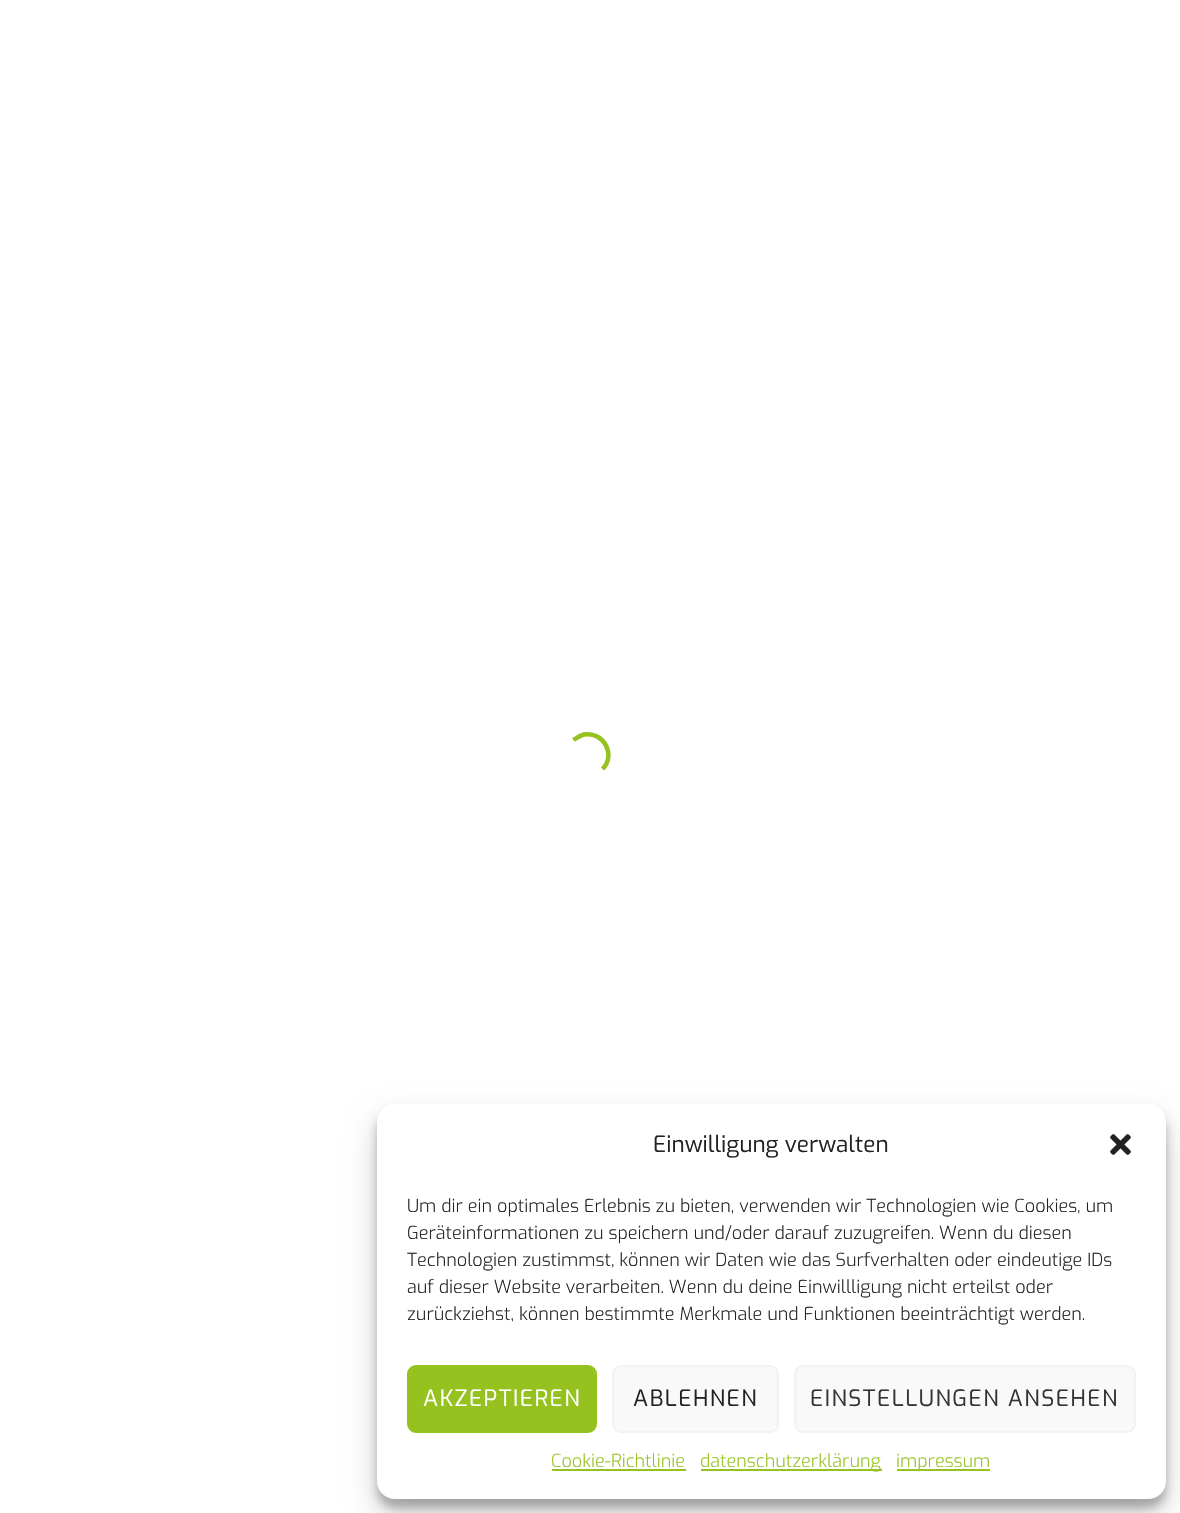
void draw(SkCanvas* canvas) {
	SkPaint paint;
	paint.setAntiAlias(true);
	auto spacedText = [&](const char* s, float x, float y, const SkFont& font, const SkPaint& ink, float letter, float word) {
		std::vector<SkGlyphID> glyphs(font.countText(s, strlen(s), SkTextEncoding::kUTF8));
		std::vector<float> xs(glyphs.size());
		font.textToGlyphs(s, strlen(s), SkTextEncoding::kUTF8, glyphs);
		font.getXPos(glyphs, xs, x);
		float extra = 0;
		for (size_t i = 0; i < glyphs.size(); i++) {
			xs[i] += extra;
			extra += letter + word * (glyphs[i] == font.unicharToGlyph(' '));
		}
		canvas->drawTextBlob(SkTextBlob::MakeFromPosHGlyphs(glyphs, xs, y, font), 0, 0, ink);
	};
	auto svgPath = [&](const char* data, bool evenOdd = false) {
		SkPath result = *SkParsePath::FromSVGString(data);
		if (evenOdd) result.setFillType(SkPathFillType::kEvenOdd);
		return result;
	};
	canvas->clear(0xffffffff);
	paint.setStroke(true);
	paint.setStrokeWidth(4.5);
	paint.setColor(0xff96c21f);
	canvas->drawPath(svgPath("M573.5 740C576.5 737.5 580 735.5 584 734.5C603.5 731 616.5 755 602.5 769"), paint);
	paint.setStroke(false);
	paint.setColor(0x3b000000);
	paint.setMaskFilter(SkMaskFilter::MakeBlur(kNormal_SkBlurStyle, 4.5));
	canvas->drawRoundRect(SkRect::MakeXYWH(377, 1113, 789, 395), 18, 18, paint);
	paint.setMaskFilter(nullptr);
	paint.setColor(0x30000000);
	paint.setMaskFilter(SkMaskFilter::MakeBlur(kNormal_SkBlurStyle, 15));
	canvas->drawRoundRect(SkRect::MakeXYWH(377, 1119, 789, 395), 18, 18, paint);
	paint.setMaskFilter(nullptr);
	paint.setColor(0xffffffff);
	canvas->drawRoundRect(SkRect::MakeXYWH(377, 1104, 789, 395), 18, 18, paint);
	SkFont f1(fontMgr->matchFamilyStyle("Exo", SkFontStyle::Normal()), 22.5);
	f1.setSubpixel(true);
	paint.setColor(0xff222222);
	canvas->drawString("Einwilligung verwalten", 653, 1152, f1, paint);
	canvas->drawImageRect(SkImages::DeferredFromEncodedData(SkData::MakeFromFileName("img1.png")), SkRect::MakeXYWH(1110, 1134, 21, 21), SkSamplingOptions());
	SkFont f2(fontMgr->matchFamilyStyle("Exo", SkFontStyle(300, SkFontStyle::kNormal_Width, SkFontStyle::kUpright_Slant)), 18);
	f2.setSubpixel(true);
	canvas->drawString("Um dir ein optimales Erlebnis zu bieten, verwenden wir Technologien wie Cookies, um", 407, 1212, f2, paint);
	canvas->drawString("Geräteinformationen zu speichern und/oder darauf zuzugreifen. Wenn du diesen", 407, 1239, f2, paint);
	canvas->drawString("Technologien zustimmst, können wir Daten wie das Surfverhalten oder eindeutige IDs", 407, 1266, f2, paint);
	canvas->drawString("auf dieser Website verarbeiten. Wenn du deine Einwillligung nicht erteilst oder", 407, 1293, f2, paint);
	canvas->drawString("zurückziehst, können bestimmte Merkmale und Funktionen beeinträchtigt werden.", 407, 1320, f2, paint);
	paint.setColor(0xff96c21f);
	canvas->drawRoundRect(SkRect::MakeXYWH(408, 1366, 188, 66), 8, 8, paint);
	paint.setStroke(true);
	paint.setStrokeWidth(2);
	canvas->drawRoundRect(SkRect::MakeXYWH(408, 1366, 188, 66), 8, 8, paint);
	paint.setStroke(false);
	paint.setColor(0xffffffff);
	spacedText("AKZEPTIEREN", 423, 1406, f1, paint, 1.5, 0);
	paint.setColor(0xfff9f9f9);
	canvas->drawRoundRect(SkRect::MakeXYWH(613, 1366, 165, 66), 8, 8, paint);
	paint.setStroke(true);
	paint.setColor(0xfff2f2f2);
	canvas->drawRoundRect(SkRect::MakeXYWH(613, 1366, 165, 66), 8, 8, paint);
	paint.setStroke(false);
	paint.setColor(0xff222222);
	spacedText("ABLEHNEN", 633, 1406, f1, paint, 1.5, 0);
	paint.setColor(0xfff9f9f9);
	canvas->drawRoundRect(SkRect::MakeXYWH(795, 1366, 340, 66), 8, 8, paint);
	paint.setStroke(true);
	paint.setColor(0xfff2f2f2);
	canvas->drawRoundRect(SkRect::MakeXYWH(795, 1366, 340, 66), 8, 8, paint);
	paint.setStroke(false);
	paint.setColor(0xff333333);
	spacedText("EINSTELLUNGEN ANSEHEN", 810, 1406, f1, paint, 1.5, 0);
	paint.setColor(0xff96c21f);
	canvas->drawString("Cookie-Richtlinie", 551, 1467, f2, paint);
	canvas->drawRect(SkRect::MakeXYWH(552, 1469, 134, 2), paint);
	canvas->drawRect(SkRect::MakeXYWH(701, 1469, 181, 2), paint);
	canvas->drawString("datenschutzerklärung", 700, 1467, f2, paint);
	canvas->drawRect(SkRect::MakeXYWH(897, 1469, 93, 2), paint);
	canvas->drawString("impressum", 896, 1467, f2, paint);
}
